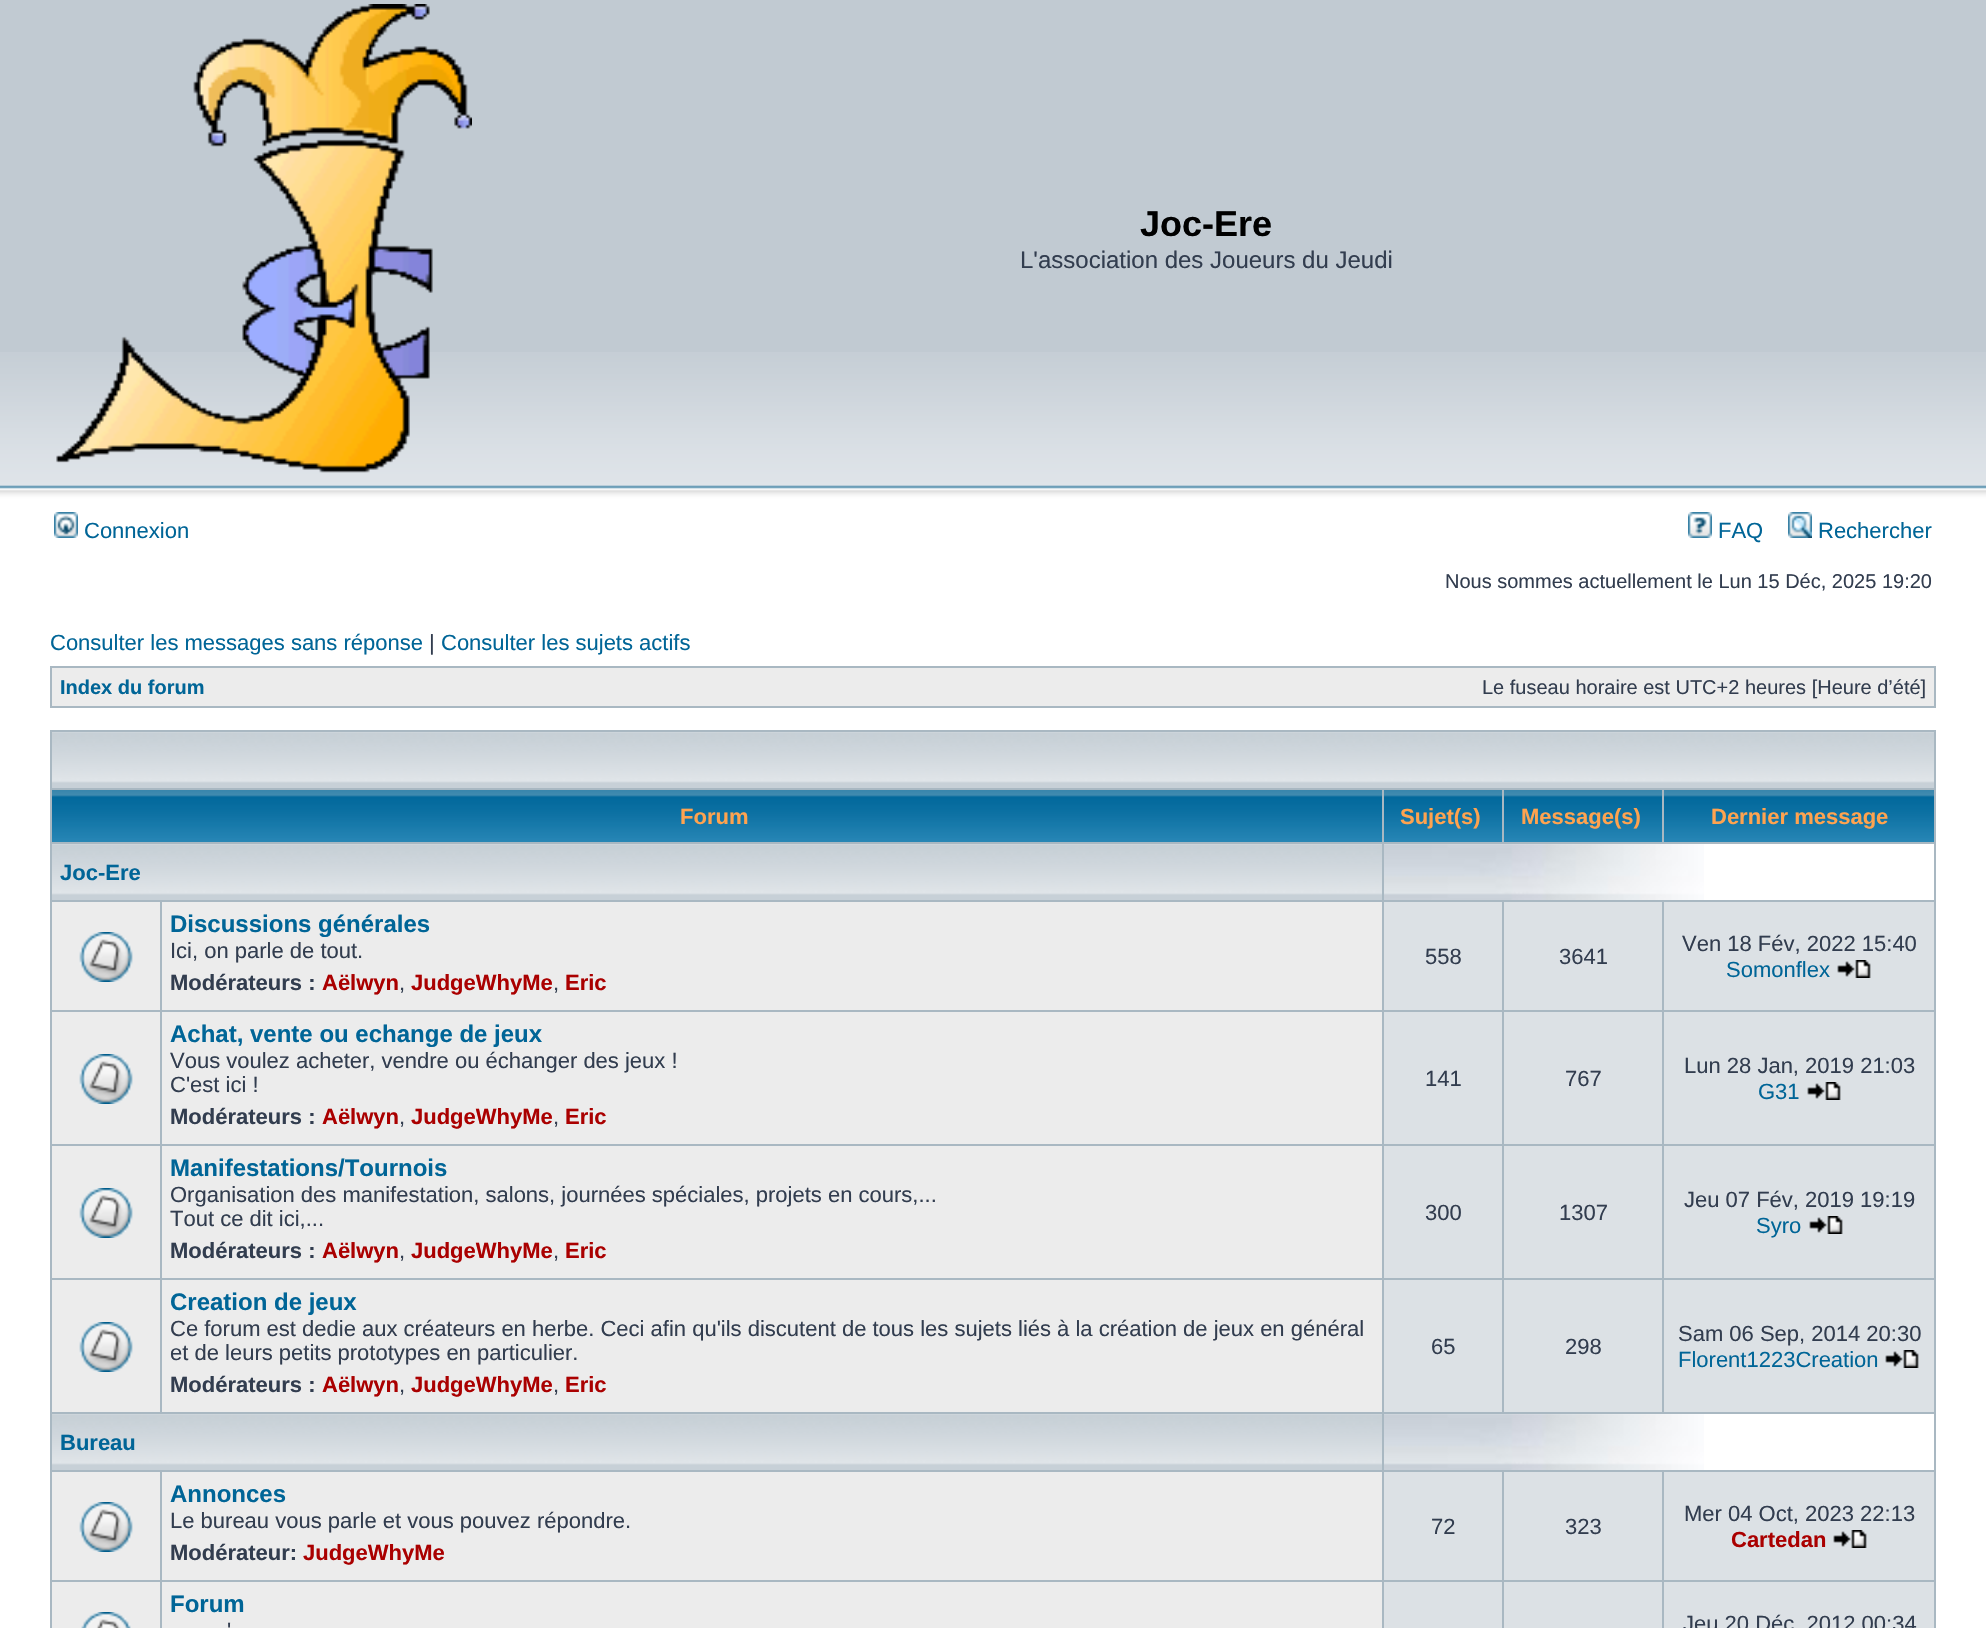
void draw(SkCanvas* canvas) {
	SkPaint paint;
	paint.setAntiAlias(true);
	canvas->clear(0xffffffff);
	paint.setColor(0xffc1cad2);
	canvas->drawRect(SkRect::MakeXYWH(0, 0, 1986, 352), paint);
	canvas->drawImageRect(SkImages::DeferredFromEncodedData(SkData::MakeFromFileName("img1.png")), SkRect::MakeXYWH(0, 352, 1986, 156), SkSamplingOptions());
	canvas->drawImageRect(SkImages::DeferredFromEncodedData(SkData::MakeFromFileName("img2.png")), SkRect::MakeXYWH(56, 4, 416, 469), SkSamplingOptions());
	SkFont f1(fontMgr->matchFamilyStyle("Liberation Sans", SkFontStyle::Bold()), 36);
	f1.setSubpixel(true);
	paint.setColor(0xff000000);
	canvas->drawString("Joc-Ere", 1140, 236, f1, paint);
	SkFont f2(fontMgr->matchFamilyStyle("Liberation Sans", SkFontStyle::Normal()), 24);
	f2.setSubpixel(true);
	paint.setColor(0xff323d4f);
	canvas->drawString("L'association des Joueurs du Jeudi", 1020, 268, f2, paint);
	canvas->drawImageRect(SkImages::DeferredFromEncodedData(SkData::MakeFromFileName("img3.png")), SkRect::MakeXYWH(54, 512, 24, 26), SkSamplingOptions());
	SkFont f3(fontMgr->matchFamilyStyle("Liberation Sans", SkFontStyle::Normal()), 22);
	f3.setSubpixel(true);
	paint.setColor(0xff006597);
	canvas->drawString("Connexion", 84, 538, f3, paint);
	canvas->drawImageRect(SkImages::DeferredFromEncodedData(SkData::MakeFromFileName("img4.png")), SkRect::MakeXYWH(1688, 512, 24, 26), SkSamplingOptions());
	canvas->drawString("FAQ", 1718, 538, f3, paint);
	canvas->drawImageRect(SkImages::DeferredFromEncodedData(SkData::MakeFromFileName("img5.png")), SkRect::MakeXYWH(1788, 512, 24, 26), SkSamplingOptions());
	canvas->drawString("Rechercher", 1818, 538, f3, paint);
	SkFont f4(fontMgr->matchFamilyStyle("Liberation Sans", SkFontStyle::Normal()), 20);
	f4.setSubpixel(true);
	paint.setColor(0xff323d4f);
	canvas->drawString("Nous sommes actuellement le Lun 15 Déc, 2025 19:20", 1445, 588, f4, paint);
	paint.setColor(0xff006597);
	canvas->drawString("Consulter les messages sans réponse", 50, 650, f3, paint);
	paint.setColor(0xff323d4f);
	canvas->drawString("|", 429, 650, f3, paint);
	paint.setColor(0xff006597);
	canvas->drawString("Consulter les sujets actifs", 441, 650, f3, paint);
	paint.setColor(0xffa9b8c2);
	canvas->drawRect(SkRect::MakeXYWH(50, 666, 1886, 42), paint);
	paint.setColor(0xffececec);
	canvas->drawRect(SkRect::MakeXYWH(52, 668, 1882, 38), paint);
	SkFont f5(fontMgr->matchFamilyStyle("Liberation Sans", SkFontStyle::Bold()), 20);
	f5.setSubpixel(true);
	paint.setColor(0xff006597);
	canvas->drawString("Index du forum", 60, 694, f5, paint);
	paint.setColor(0xff323d4f);
	canvas->drawString("Le fuseau horaire est UTC+2 heures [Heure d’été]", 1482, 694, f4, paint);
	paint.setColor(0xffa9b8c2);
	canvas->drawRect(SkRect::MakeXYWH(50, 730, 1886, 898), paint);
	paint.setColor(0xffc7d0d7);
	canvas->drawRect(SkRect::MakeXYWH(52, 783, 1882, 5), paint);
	canvas->drawImageRect(SkImages::DeferredFromEncodedData(SkData::MakeFromFileName("img6.png")), SkRect::MakeXYWH(52, 732, 1882, 51), SkSamplingOptions());
	canvas->drawImageRect(SkImages::DeferredFromEncodedData(SkData::MakeFromFileName("img7.png")), SkRect::MakeXYWH(52, 790, 1330, 52), SkSamplingOptions());
	SkFont f6(fontMgr->matchFamilyStyle("Liberation Sans", SkFontStyle::Bold()), 22);
	f6.setSubpixel(true);
	paint.setColor(0xffffa34f);
	canvas->drawString("Forum", 680, 824, f6, paint);
	canvas->drawImageRect(SkImages::DeferredFromEncodedData(SkData::MakeFromFileName("img8.png")), SkRect::MakeXYWH(1384, 790, 118, 52), SkSamplingOptions());
	canvas->drawString("Sujet(s)", 1400, 824, f6, paint);
	canvas->drawImageRect(SkImages::DeferredFromEncodedData(SkData::MakeFromFileName("img9.png")), SkRect::MakeXYWH(1504, 790, 158, 52), SkSamplingOptions());
	canvas->drawString("Message(s)", 1521, 824, f6, paint);
	canvas->drawImageRect(SkImages::DeferredFromEncodedData(SkData::MakeFromFileName("img10.png")), SkRect::MakeXYWH(1664, 790, 270, 52), SkSamplingOptions());
	canvas->drawString("Dernier message", 1711, 824, f6, paint);
	paint.setColor(0xffc7d0d7);
	canvas->drawRect(SkRect::MakeXYWH(52, 895, 1330, 5), paint);
	canvas->drawImageRect(SkImages::DeferredFromEncodedData(SkData::MakeFromFileName("img11.png")), SkRect::MakeXYWH(52, 844, 1330, 51), SkSamplingOptions());
	paint.setColor(0xff006597);
	canvas->drawString("Joc-Ere", 60, 880, f6, paint);
	paint.setColor(0xffffffff);
	canvas->drawRect(SkRect::MakeXYWH(1704, 844, 230, 56), paint);
	canvas->drawImageRect(SkImages::DeferredFromEncodedData(SkData::MakeFromFileName("img12.png")), SkRect::MakeXYWH(1384, 844, 320, 56), SkSamplingOptions());
	paint.setColor(0xffececec);
	canvas->drawRect(SkRect::MakeXYWH(52, 902, 108, 108), paint);
	canvas->drawImageRect(SkImages::DeferredFromEncodedData(SkData::MakeFromFileName("img13.png")), SkRect::MakeXYWH(79, 932, 54, 50), SkSamplingOptions());
	canvas->drawRect(SkRect::MakeXYWH(162, 902, 1220, 108), paint);
	SkFont f7(fontMgr->matchFamilyStyle("Liberation Sans", SkFontStyle::Bold()), 24);
	f7.setSubpixel(true);
	paint.setColor(0xff006597);
	canvas->drawString("Discussions générales", 170, 932, f7, paint);
	paint.setColor(0xff323d4f);
	canvas->drawString("Ici, on parle de tout.", 170, 958, f3, paint);
	canvas->drawString("Modérateurs :", 170, 990, f6, paint);
	paint.setColor(0xffaa0000);
	canvas->drawString("Aëlwyn", 322, 990, f6, paint);
	paint.setColor(0xff323d4f);
	canvas->drawString(",", 399, 990, f3, paint);
	paint.setColor(0xffaa0000);
	canvas->drawString("JudgeWhyMe", 411, 990, f6, paint);
	paint.setColor(0xff323d4f);
	canvas->drawString(",", 553, 990, f3, paint);
	paint.setColor(0xffaa0000);
	canvas->drawString("Eric", 565, 990, f6, paint);
	paint.setColor(0xffdce1e5);
	canvas->drawRect(SkRect::MakeXYWH(1384, 902, 118, 108), paint);
	paint.setColor(0xff323d4f);
	canvas->drawString("558", 1425, 964, f3, paint);
	paint.setColor(0xffdce1e5);
	canvas->drawRect(SkRect::MakeXYWH(1504, 902, 158, 108), paint);
	paint.setColor(0xff323d4f);
	canvas->drawString("3641", 1559, 964, f3, paint);
	paint.setColor(0xffdce1e5);
	canvas->drawRect(SkRect::MakeXYWH(1664, 902, 270, 108), paint);
	paint.setColor(0xff323d4f);
	canvas->drawString("Ven 18 Fév, 2022 15:40", 1682, 951, f3, paint);
	paint.setColor(0xff006597);
	canvas->drawString("Somonflex", 1726, 977, f3, paint);
	canvas->drawImageRect(SkImages::DeferredFromEncodedData(SkData::MakeFromFileName("img14.png")), SkRect::MakeXYWH(1837, 960, 34, 18), SkSamplingOptions());
	paint.setColor(0xffececec);
	canvas->drawRect(SkRect::MakeXYWH(52, 1012, 108, 132), paint);
	canvas->drawImageRect(SkImages::DeferredFromEncodedData(SkData::MakeFromFileName("img13.png")), SkRect::MakeXYWH(79, 1054, 54, 50), SkSamplingOptions());
	canvas->drawRect(SkRect::MakeXYWH(162, 1012, 1220, 132), paint);
	paint.setColor(0xff006597);
	canvas->drawString("Achat, vente ou echange de jeux", 170, 1042, f7, paint);
	paint.setColor(0xff323d4f);
	canvas->drawString("Vous voulez acheter, vendre ou échanger des jeux !", 170, 1068, f3, paint);
	canvas->drawString("C'est ici !", 170, 1092, f3, paint);
	canvas->drawString("Modérateurs :", 170, 1124, f6, paint);
	paint.setColor(0xffaa0000);
	canvas->drawString("Aëlwyn", 322, 1124, f6, paint);
	paint.setColor(0xff323d4f);
	canvas->drawString(",", 399, 1124, f3, paint);
	paint.setColor(0xffaa0000);
	canvas->drawString("JudgeWhyMe", 411, 1124, f6, paint);
	paint.setColor(0xff323d4f);
	canvas->drawString(",", 553, 1124, f3, paint);
	paint.setColor(0xffaa0000);
	canvas->drawString("Eric", 565, 1124, f6, paint);
	paint.setColor(0xffdce1e5);
	canvas->drawRect(SkRect::MakeXYWH(1384, 1012, 118, 132), paint);
	paint.setColor(0xff323d4f);
	canvas->drawString("141", 1425, 1086, f3, paint);
	paint.setColor(0xffdce1e5);
	canvas->drawRect(SkRect::MakeXYWH(1504, 1012, 158, 132), paint);
	paint.setColor(0xff323d4f);
	canvas->drawString("767", 1565, 1086, f3, paint);
	paint.setColor(0xffdce1e5);
	canvas->drawRect(SkRect::MakeXYWH(1664, 1012, 270, 132), paint);
	paint.setColor(0xff323d4f);
	canvas->drawString("Lun 28 Jan, 2019 21:03", 1684, 1073, f3, paint);
	paint.setColor(0xff006597);
	canvas->drawString("G31", 1758, 1099, f3, paint);
	canvas->drawImageRect(SkImages::DeferredFromEncodedData(SkData::MakeFromFileName("img14.png")), SkRect::MakeXYWH(1807, 1082, 34, 18), SkSamplingOptions());
	paint.setColor(0xffececec);
	canvas->drawRect(SkRect::MakeXYWH(52, 1146, 108, 132), paint);
	canvas->drawImageRect(SkImages::DeferredFromEncodedData(SkData::MakeFromFileName("img13.png")), SkRect::MakeXYWH(79, 1188, 54, 50), SkSamplingOptions());
	canvas->drawRect(SkRect::MakeXYWH(162, 1146, 1220, 132), paint);
	paint.setColor(0xff006597);
	canvas->drawString("Manifestations/Tournois", 170, 1176, f7, paint);
	paint.setColor(0xff323d4f);
	canvas->drawString("Organisation des manifestation, salons, journées spéciales, projets en cours,...", 170, 1202, f3, paint);
	canvas->drawString("Tout ce dit ici,...", 170, 1226, f3, paint);
	canvas->drawString("Modérateurs :", 170, 1258, f6, paint);
	paint.setColor(0xffaa0000);
	canvas->drawString("Aëlwyn", 322, 1258, f6, paint);
	paint.setColor(0xff323d4f);
	canvas->drawString(",", 399, 1258, f3, paint);
	paint.setColor(0xffaa0000);
	canvas->drawString("JudgeWhyMe", 411, 1258, f6, paint);
	paint.setColor(0xff323d4f);
	canvas->drawString(",", 553, 1258, f3, paint);
	paint.setColor(0xffaa0000);
	canvas->drawString("Eric", 565, 1258, f6, paint);
	paint.setColor(0xffdce1e5);
	canvas->drawRect(SkRect::MakeXYWH(1384, 1146, 118, 132), paint);
	paint.setColor(0xff323d4f);
	canvas->drawString("300", 1425, 1220, f3, paint);
	paint.setColor(0xffdce1e5);
	canvas->drawRect(SkRect::MakeXYWH(1504, 1146, 158, 132), paint);
	paint.setColor(0xff323d4f);
	canvas->drawString("1307", 1559, 1220, f3, paint);
	paint.setColor(0xffdce1e5);
	canvas->drawRect(SkRect::MakeXYWH(1664, 1146, 270, 132), paint);
	paint.setColor(0xff323d4f);
	canvas->drawString("Jeu 07 Fév, 2019 19:19", 1684, 1207, f3, paint);
	paint.setColor(0xff006597);
	canvas->drawString("Syro", 1756, 1233, f3, paint);
	canvas->drawImageRect(SkImages::DeferredFromEncodedData(SkData::MakeFromFileName("img14.png")), SkRect::MakeXYWH(1809, 1216, 34, 18), SkSamplingOptions());
	paint.setColor(0xffececec);
	canvas->drawRect(SkRect::MakeXYWH(52, 1280, 108, 132), paint);
	canvas->drawImageRect(SkImages::DeferredFromEncodedData(SkData::MakeFromFileName("img13.png")), SkRect::MakeXYWH(79, 1322, 54, 50), SkSamplingOptions());
	canvas->drawRect(SkRect::MakeXYWH(162, 1280, 1220, 132), paint);
	paint.setColor(0xff006597);
	canvas->drawString("Creation de jeux", 170, 1310, f7, paint);
	paint.setColor(0xff323d4f);
	canvas->drawString("Ce forum est dedie aux créateurs en herbe. Ceci afin qu'ils discutent de tous les sujets liés à la création de jeux en général", 170, 1336, f3, paint);
	canvas->drawString("et de leurs petits prototypes en particulier.", 170, 1360, f3, paint);
	canvas->drawString("Modérateurs :", 170, 1392, f6, paint);
	paint.setColor(0xffaa0000);
	canvas->drawString("Aëlwyn", 322, 1392, f6, paint);
	paint.setColor(0xff323d4f);
	canvas->drawString(",", 399, 1392, f3, paint);
	paint.setColor(0xffaa0000);
	canvas->drawString("JudgeWhyMe", 411, 1392, f6, paint);
	paint.setColor(0xff323d4f);
	canvas->drawString(",", 553, 1392, f3, paint);
	paint.setColor(0xffaa0000);
	canvas->drawString("Eric", 565, 1392, f6, paint);
	paint.setColor(0xffdce1e5);
	canvas->drawRect(SkRect::MakeXYWH(1384, 1280, 118, 132), paint);
	paint.setColor(0xff323d4f);
	canvas->drawString("65", 1431, 1354, f3, paint);
	paint.setColor(0xffdce1e5);
	canvas->drawRect(SkRect::MakeXYWH(1504, 1280, 158, 132), paint);
	paint.setColor(0xff323d4f);
	canvas->drawString("298", 1565, 1354, f3, paint);
	paint.setColor(0xffdce1e5);
	canvas->drawRect(SkRect::MakeXYWH(1664, 1280, 270, 132), paint);
	paint.setColor(0xff323d4f);
	canvas->drawString("Sam 06 Sep, 2014 20:30", 1678, 1341, f3, paint);
	paint.setColor(0xff006597);
	canvas->drawString("Florent1223Creation", 1678, 1367, f3, paint);
	canvas->drawImageRect(SkImages::DeferredFromEncodedData(SkData::MakeFromFileName("img14.png")), SkRect::MakeXYWH(1885, 1350, 34, 18), SkSamplingOptions());
	paint.setColor(0xffc7d0d7);
	canvas->drawRect(SkRect::MakeXYWH(52, 1465, 1330, 5), paint);
	canvas->drawImageRect(SkImages::DeferredFromEncodedData(SkData::MakeFromFileName("img15.png")), SkRect::MakeXYWH(52, 1414, 1330, 51), SkSamplingOptions());
	paint.setColor(0xff006597);
	canvas->drawString("Bureau", 60, 1450, f6, paint);
	paint.setColor(0xffffffff);
	canvas->drawRect(SkRect::MakeXYWH(1704, 1414, 230, 56), paint);
	canvas->drawImageRect(SkImages::DeferredFromEncodedData(SkData::MakeFromFileName("img12.png")), SkRect::MakeXYWH(1384, 1414, 320, 56), SkSamplingOptions());
	paint.setColor(0xffececec);
	canvas->drawRect(SkRect::MakeXYWH(52, 1472, 108, 108), paint);
	canvas->drawImageRect(SkImages::DeferredFromEncodedData(SkData::MakeFromFileName("img13.png")), SkRect::MakeXYWH(79, 1502, 54, 50), SkSamplingOptions());
	canvas->drawRect(SkRect::MakeXYWH(162, 1472, 1220, 108), paint);
	paint.setColor(0xff006597);
	canvas->drawString("Annonces", 170, 1502, f7, paint);
	paint.setColor(0xff323d4f);
	canvas->drawString("Le bureau vous parle et vous pouvez répondre.", 170, 1528, f3, paint);
	canvas->drawString("Modérateur:", 170, 1560, f6, paint);
	paint.setColor(0xffaa0000);
	canvas->drawString("JudgeWhyMe", 303, 1560, f6, paint);
	paint.setColor(0xffdce1e5);
	canvas->drawRect(SkRect::MakeXYWH(1384, 1472, 118, 108), paint);
	paint.setColor(0xff323d4f);
	canvas->drawString("72", 1431, 1534, f3, paint);
	paint.setColor(0xffdce1e5);
	canvas->drawRect(SkRect::MakeXYWH(1504, 1472, 158, 108), paint);
	paint.setColor(0xff323d4f);
	canvas->drawString("323", 1565, 1534, f3, paint);
	paint.setColor(0xffdce1e5);
	canvas->drawRect(SkRect::MakeXYWH(1664, 1472, 270, 108), paint);
	paint.setColor(0xff323d4f);
	canvas->drawString("Mer 04 Oct, 2023 22:13", 1684, 1521, f3, paint);
	paint.setColor(0xffaa0000);
	canvas->drawString("Cartedan", 1731, 1547, f6, paint);
	canvas->drawImageRect(SkImages::DeferredFromEncodedData(SkData::MakeFromFileName("img14.png")), SkRect::MakeXYWH(1833, 1530, 34, 18), SkSamplingOptions());
	paint.setColor(0xffececec);
	canvas->drawRect(SkRect::MakeXYWH(52, 1582, 108, 46), paint);
	canvas->drawImageRect(SkImages::DeferredFromEncodedData(SkData::MakeFromFileName("img16.png")), SkRect::MakeXYWH(81, 1612, 50, 16), SkSamplingOptions());
	canvas->drawRect(SkRect::MakeXYWH(162, 1582, 1220, 46), paint);
	paint.setColor(0xff006597);
	canvas->drawString("Forum", 170, 1612, f7, paint);
	paint.setColor(0xff323d4f);
	canvas->drawString("'", 227, 1638, f3, paint);
	paint.setColor(0xffdce1e5);
	canvas->drawRect(SkRect::MakeXYWH(1384, 1582, 118, 46), paint);
	canvas->drawRect(SkRect::MakeXYWH(1504, 1582, 158, 46), paint);
	canvas->drawRect(SkRect::MakeXYWH(1664, 1582, 270, 46), paint);
	paint.setColor(0xff323d4f);
	canvas->drawString("Jeu 20 Déc, 2012 00:34", 1683, 1631, f3, paint);
}
